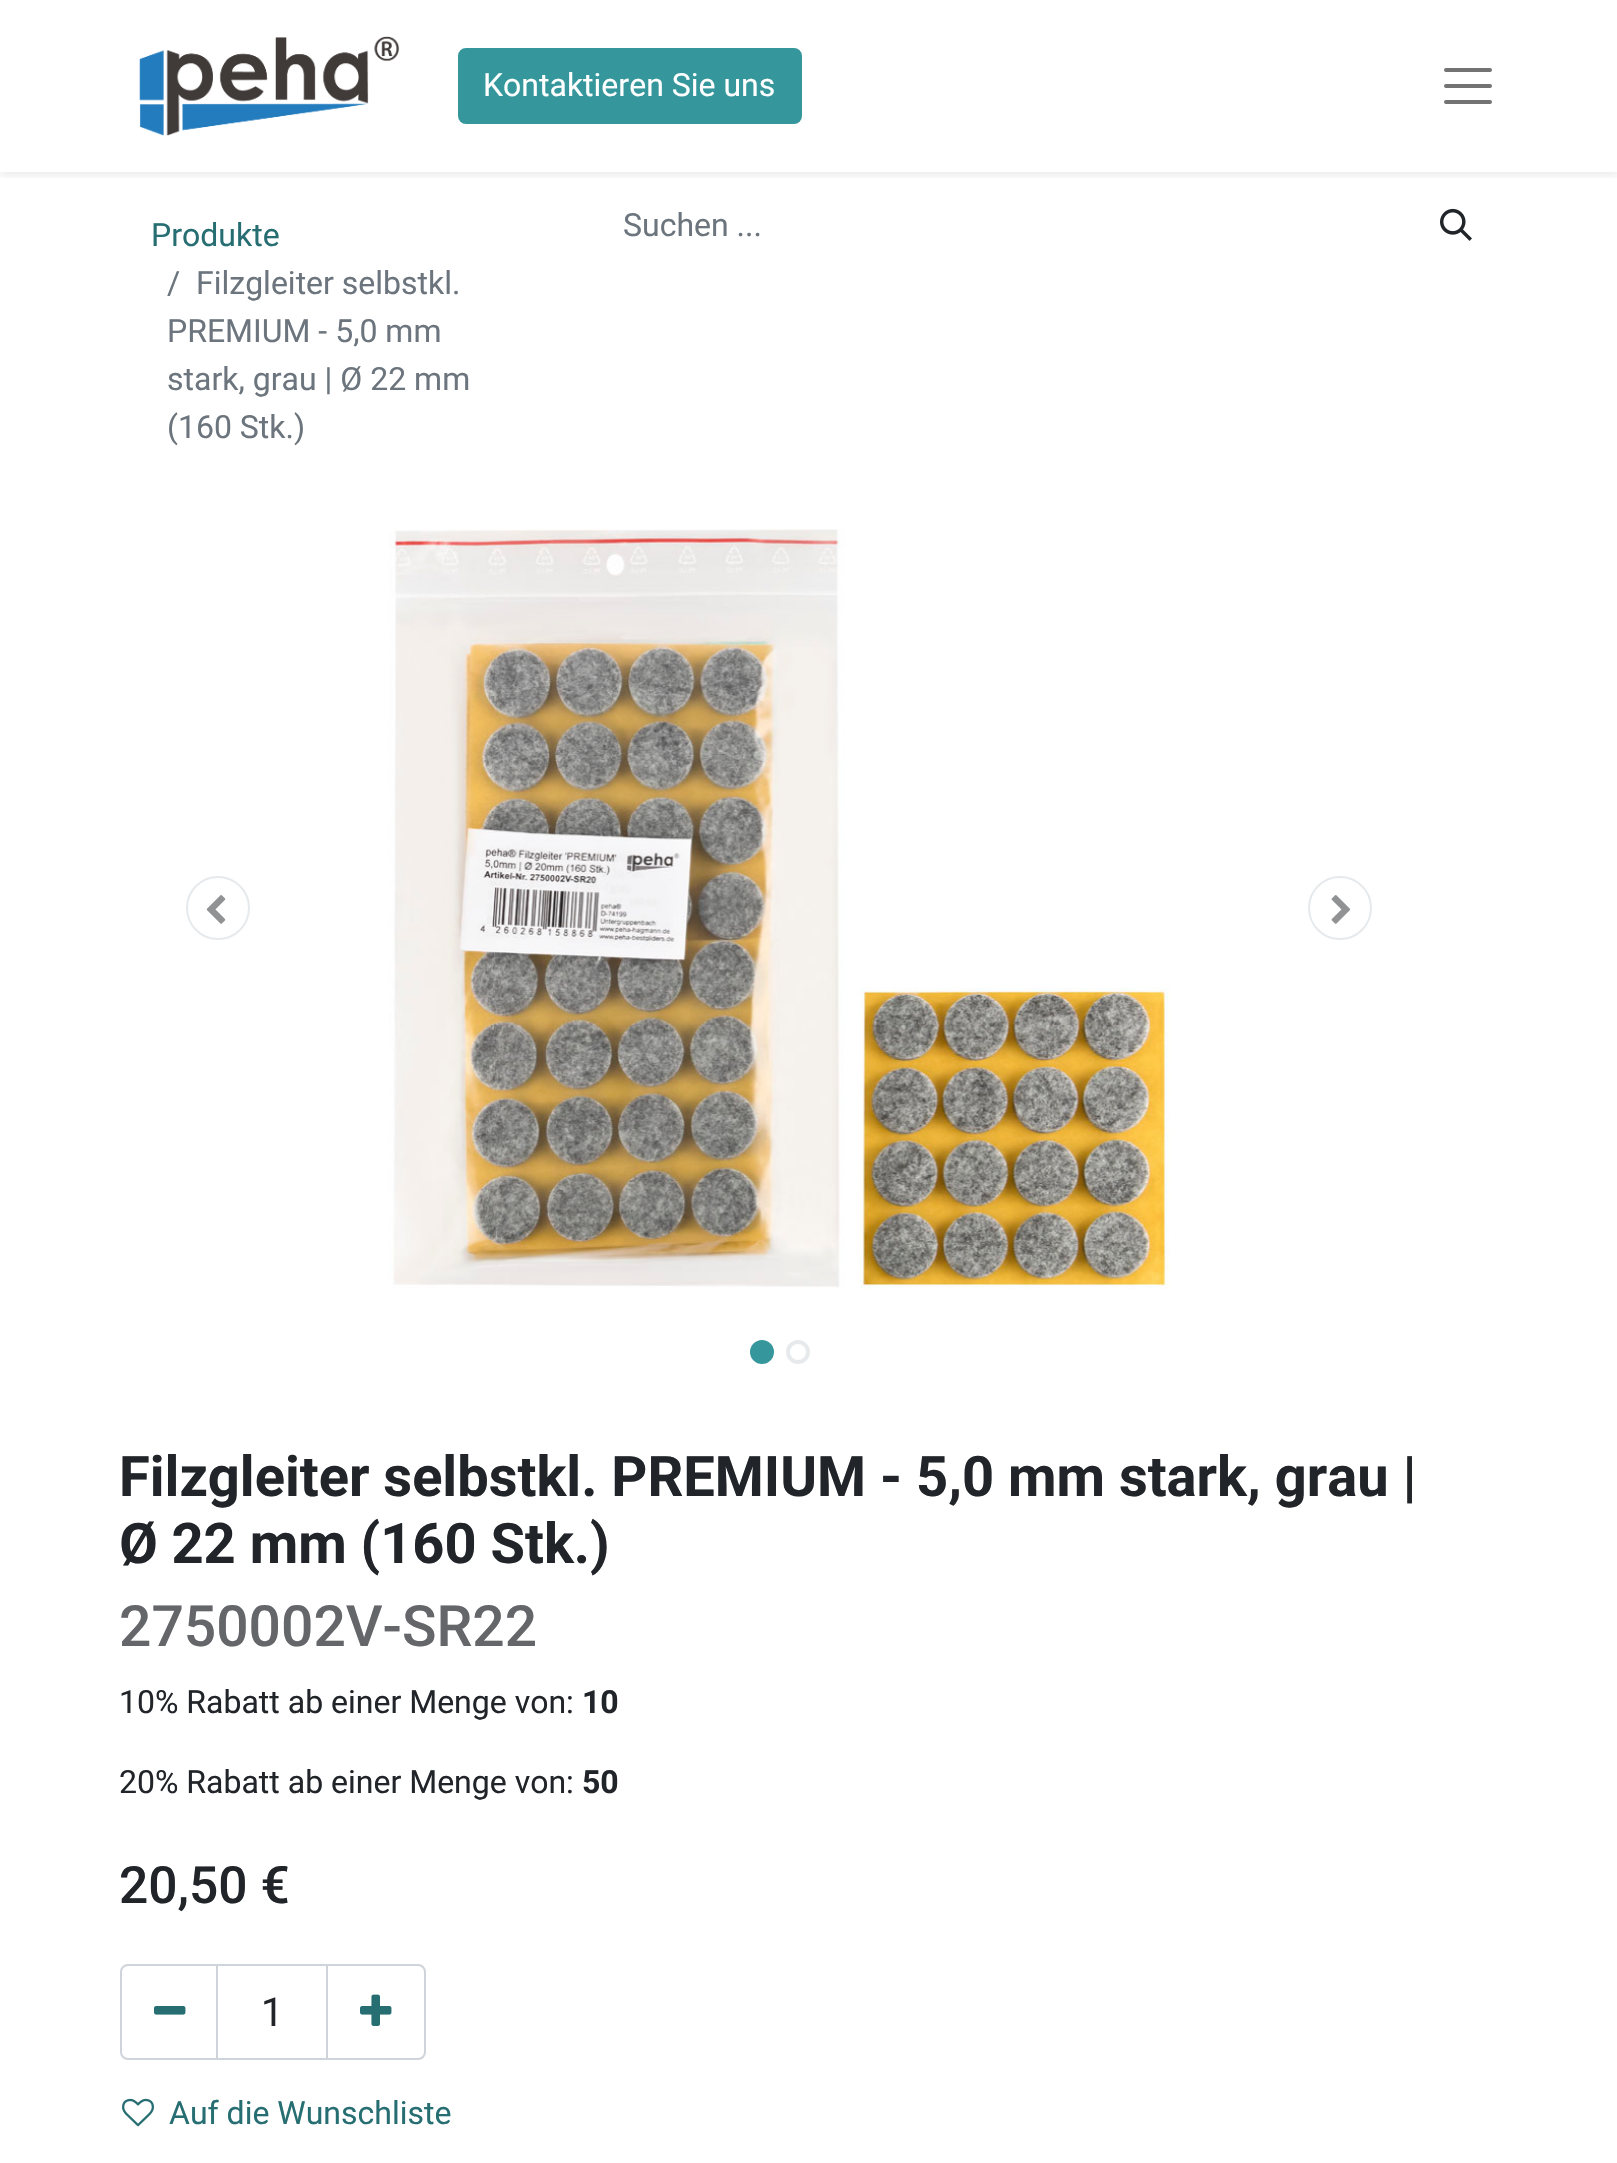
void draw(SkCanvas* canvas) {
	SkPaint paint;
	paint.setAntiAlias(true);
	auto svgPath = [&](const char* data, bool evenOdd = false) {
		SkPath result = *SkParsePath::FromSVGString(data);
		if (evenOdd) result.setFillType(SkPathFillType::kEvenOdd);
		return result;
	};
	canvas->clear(0xffffffff);
	canvas->save();
	canvas->clipRect(SkRect::MakeXYWH(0, 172, 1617, 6));
	paint.setColor(0x12000000);
	paint.setMaskFilter(SkMaskFilter::MakeBlur(kNormal_SkBlurStyle, 4));
	canvas->drawRect(SkRect::MakeXYWH(0, 4, 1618, 172), paint);
	paint.setMaskFilter(nullptr);
	canvas->restore();
	canvas->drawImageRect(SkImages::DeferredFromEncodedData(SkData::MakeFromFileName("img1.png")), SkRect::MakeXYWH(139, 36, 261, 100), SkSamplingOptions());
	paint.setColor(0xff35979c);
	canvas->drawRoundRect(SkRect::MakeXYWH(459, 49, 342, 74), 7, 7, paint);
	paint.setStroke(true);
	paint.setStrokeWidth(2);
	canvas->drawRoundRect(SkRect::MakeXYWH(459, 49, 342, 74), 7, 7, paint);
	SkFont f1(fontMgr->matchFamilyStyle("Roboto", SkFontStyle::Normal()), 32);
	f1.setSubpixel(true);
	paint.setStroke(false);
	paint.setColor(0xffffffff);
	canvas->drawString("Kontaktieren Sie uns", 483, 96, f1, paint);
	paint.setStroke(true);
	paint.setStrokeWidth(4);
	paint.setStrokeCap(SkPaint::kRound_Cap);
	paint.setColor(0xff737373);
	canvas->drawPath(svgPath("M1446 70H1490M1446 86H1490M1446 102H1490"), paint);
	paint.setStroke(false);
	paint.setColor(0xff276e72);
	canvas->drawString("Produkte", 151, 246, f1, paint);
	paint.setColor(0xff6c757d);
	canvas->drawString("/", 167, 294, f1, paint);
	canvas->drawString("Filzgleiter selbstkl.", 196, 294, f1, paint);
	canvas->drawString("PREMIUM - 5,0 mm", 167, 342, f1, paint);
	canvas->drawString("stark, grau | Ø 22 mm", 167, 390, f1, paint);
	canvas->drawString("(160 Stk.)", 167, 438, f1, paint);
	canvas->drawString("Suchen ...", 623, 236, f1, paint);
	canvas->drawImageRect(SkImages::DeferredFromEncodedData(SkData::MakeFromFileName("img2.png")), SkRect::MakeXYWH(1440, 208, 32, 33), SkSamplingOptions());
	paint.setStroke(true);
	paint.setStrokeWidth(2);
	paint.setStrokeCap(SkPaint::kButt_Cap);
	paint.setColor(0xffe7eaed);
	canvas->drawCircle(218, 908, 31, paint);
	canvas->drawImageRect(SkImages::DeferredFromEncodedData(SkData::MakeFromFileName("img3.png")), SkRect::MakeXYWH(206, 895, 20, 29), SkSamplingOptions());
	canvas->drawImageRect(SkImages::DeferredFromEncodedData(SkData::MakeFromFileName("img4.png")), SkRect::MakeXYWH(388, 529, 782, 760), SkSamplingOptions());
	canvas->drawCircle(1340, 908, 31, paint);
	canvas->drawImageRect(SkImages::DeferredFromEncodedData(SkData::MakeFromFileName("img5.png")), SkRect::MakeXYWH(1331, 895, 20, 29), SkSamplingOptions());
	paint.setStroke(false);
	paint.setColor(0xff35979c);
	canvas->drawCircle(762, 1352, 10, paint);
	paint.setStroke(true);
	paint.setStrokeWidth(4);
	canvas->drawCircle(762, 1352, 10, paint);
	paint.setColor(0xffe7eaed);
	canvas->drawCircle(798, 1352, 10, paint);
	SkFont f2(fontMgr->matchFamilyStyle("Roboto", SkFontStyle::Bold()), 56);
	f2.setSubpixel(true);
	paint.setStroke(false);
	paint.setColor(0xff212529);
	canvas->drawString("Filzgleiter selbstkl. PREMIUM - 5,0 mm stark, grau |", 119, 1496, f2, paint);
	canvas->drawString("Ø 22 mm (160 Stk.)", 119, 1563, f2, paint);
	SkFont f3(fontMgr->matchFamilyStyle("Roboto", SkFontStyle(500, SkFontStyle::kNormal_Width, SkFontStyle::kUpright_Slant)), 57);
	f3.setSubpixel(true);
	paint.setColor(0xff646669);
	canvas->drawString("2750002V-SR22", 119, 1646, f3, paint);
	paint.setColor(0xff212529);
	canvas->drawString("10% Rabatt ab einer Menge von:", 119, 1713, f1, paint);
	SkFont f4(fontMgr->matchFamilyStyle("Roboto", SkFontStyle::Bold()), 32);
	f4.setSubpixel(true);
	canvas->drawString("10", 582, 1713, f4, paint);
	canvas->drawString("20% Rabatt ab einer Menge von:", 119, 1793, f1, paint);
	canvas->drawString("50", 582, 1793, f4, paint);
	SkFont f5(fontMgr->matchFamilyStyle("Roboto", SkFontStyle(500, SkFontStyle::kNormal_Width, SkFontStyle::kUpright_Slant)), 51.5);
	f5.setSubpixel(true);
	canvas->drawString("20,50 €", 119, 1903, f5, paint);
	paint.setStroke(true);
	paint.setStrokeWidth(2);
	paint.setColor(0xffced4da);
	canvas->drawRect(SkRect::MakeXYWH(217, 1965, 110, 94), paint);
	canvas->drawPath(svgPath("M128 1965H217V2059H128C124 2059 121 2056 121 2052V1972C121 1968 124 1965 128 1965Z"), paint);
	canvas->drawImageRect(SkImages::DeferredFromEncodedData(SkData::MakeFromFileName("img6.png")), SkRect::MakeXYWH(154, 2006, 32, 9), SkSamplingOptions());
	SkFont f6(fontMgr->matchFamilyStyle("Roboto", SkFontStyle::Normal()), 40);
	f6.setSubpixel(true);
	paint.setStroke(false);
	paint.setColor(0xff212529);
	canvas->drawString("1", 261, 2026, f6, paint);
	paint.setStroke(true);
	paint.setColor(0xffced4da);
	canvas->drawPath(svgPath("M327 1965H418C422 1965 425 1968 425 1972V2052C425 2056 422 2059 418 2059H327Z"), paint);
	canvas->drawImageRect(SkImages::DeferredFromEncodedData(SkData::MakeFromFileName("img7.png")), SkRect::MakeXYWH(360, 1994, 32, 32), SkSamplingOptions());
	canvas->drawImageRect(SkImages::DeferredFromEncodedData(SkData::MakeFromFileName("img8.png")), SkRect::MakeXYWH(122, 2098, 32, 29), SkSamplingOptions());
	paint.setStroke(false);
	paint.setColor(0xff276e72);
	canvas->drawString("Auf die Wunschliste", 169, 2124, f1, paint);
}
